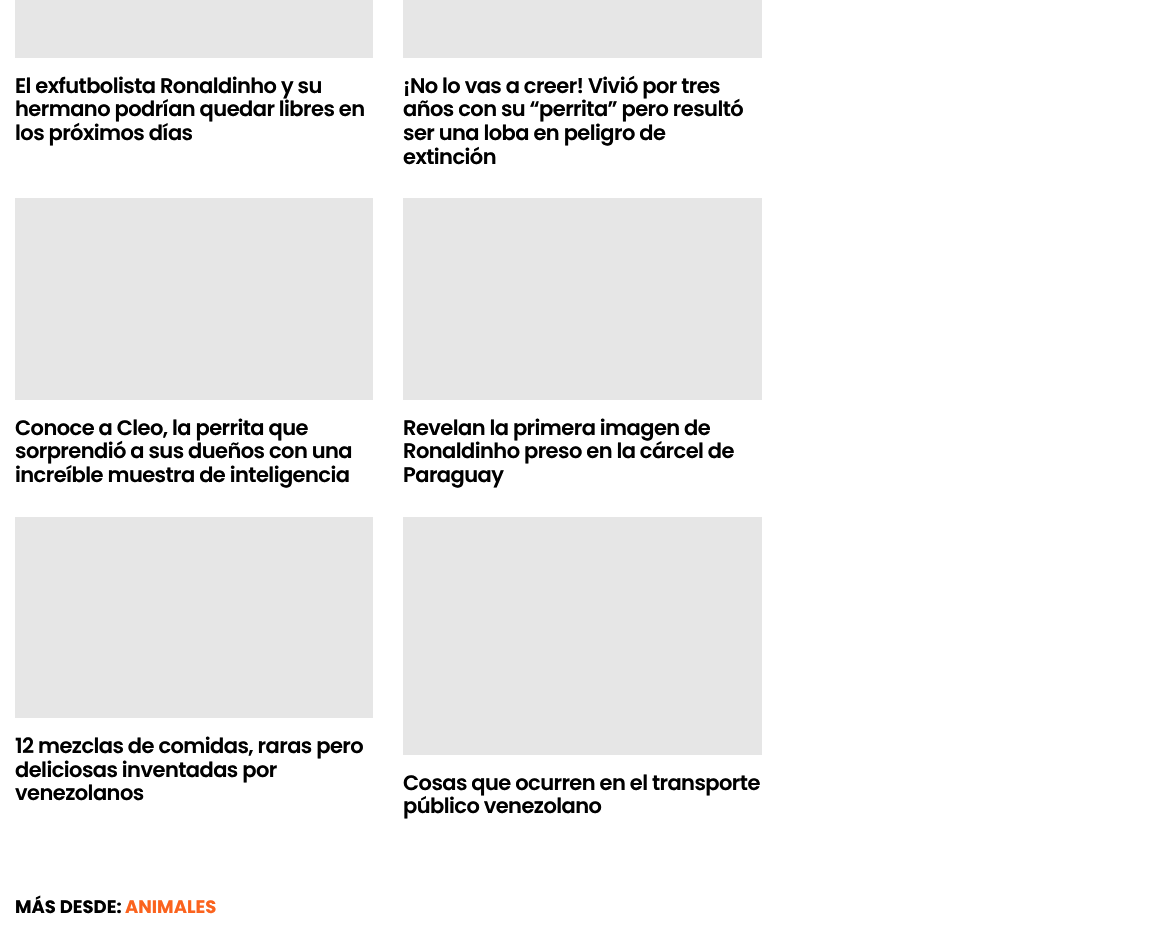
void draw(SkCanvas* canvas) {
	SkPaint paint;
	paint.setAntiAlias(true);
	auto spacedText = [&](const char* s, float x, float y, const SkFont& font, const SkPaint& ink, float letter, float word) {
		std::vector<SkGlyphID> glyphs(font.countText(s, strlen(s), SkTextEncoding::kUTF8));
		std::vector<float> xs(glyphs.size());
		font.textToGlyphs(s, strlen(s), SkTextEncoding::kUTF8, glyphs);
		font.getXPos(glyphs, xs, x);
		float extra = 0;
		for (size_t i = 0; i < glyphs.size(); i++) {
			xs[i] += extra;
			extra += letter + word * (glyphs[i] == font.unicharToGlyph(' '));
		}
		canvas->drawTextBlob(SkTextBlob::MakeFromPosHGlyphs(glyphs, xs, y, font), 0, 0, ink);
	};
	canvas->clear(0xffffffff);
	paint.setColor(0xffe6e6e6);
	canvas->drawRect(SkRect::MakeXYWH(15, 0, 358, 58), paint);
	SkFont f1(fontMgr->matchFamilyStyle("Poppins", SkFontStyle(600, SkFontStyle::kNormal_Width, SkFontStyle::kUpright_Slant)), 21);
	f1.setSubpixel(true);
	paint.setColor(0xff000000);
	spacedText("El exfutbolista Ronaldinho y su", 15, 93, f1, paint, -0.55, 0);
	spacedText("hermano podrían quedar libres en", 15, 116, f1, paint, -0.55, 0);
	spacedText("los próximos días", 15, 140, f1, paint, -0.55, 0);
	paint.setColor(0xffe6e6e6);
	canvas->drawRect(SkRect::MakeXYWH(403, 0, 359, 58), paint);
	paint.setColor(0xff000000);
	spacedText("¡No lo vas a creer! Vivió por tres", 403, 93, f1, paint, -0.55, 0);
	spacedText("años con su “perrita” pero resultó", 403, 116, f1, paint, -0.55, 0);
	spacedText("ser una loba en peligro de", 403, 140, f1, paint, -0.55, 0);
	spacedText("extinción", 403, 164, f1, paint, -0.55, 0);
	paint.setColor(0xffe6e6e6);
	canvas->drawRect(SkRect::MakeXYWH(15, 198, 358, 202), paint);
	paint.setColor(0xff000000);
	spacedText("Conoce a Cleo, la perrita que", 15, 435, f1, paint, -0.55, 0);
	spacedText("sorprendió a sus dueños con una", 15, 458, f1, paint, -0.55, 0);
	spacedText("increíble muestra de inteligencia", 15, 482, f1, paint, -0.55, 0);
	paint.setColor(0xffe6e6e6);
	canvas->drawRect(SkRect::MakeXYWH(403, 198, 359, 202), paint);
	paint.setColor(0xff000000);
	spacedText("Revelan la primera imagen de", 403, 435, f1, paint, -0.55, 0);
	spacedText("Ronaldinho preso en la cárcel de", 403, 458, f1, paint, -0.55, 0);
	spacedText("Paraguay", 403, 482, f1, paint, -0.55, 0);
	paint.setColor(0xffe6e6e6);
	canvas->drawRect(SkRect::MakeXYWH(15, 517, 358, 201), paint);
	paint.setColor(0xff000000);
	spacedText("12 mezclas de comidas, raras pero", 15, 753, f1, paint, -0.55, 0);
	spacedText("deliciosas inventadas por", 15, 777, f1, paint, -0.55, 0);
	spacedText("venezolanos", 15, 800, f1, paint, -0.55, 0);
	paint.setColor(0xffe6e6e6);
	canvas->drawRect(SkRect::MakeXYWH(403, 517, 359, 238), paint);
	paint.setColor(0xff000000);
	spacedText("Cosas que ocurren en el transporte", 403, 790, f1, paint, -0.55, 0);
	spacedText("público venezolano", 403, 813, f1, paint, -0.55, 0);
	SkFont f2(fontMgr->matchFamilyStyle("Poppins", SkFontStyle::Bold()), 18);
	f2.setSubpixel(true);
	canvas->drawString("MÁS DESDE:", 15, 913, f2, paint);
	paint.setColor(0xfffb631e);
	canvas->drawString("ANIMALES", 125, 913, f2, paint);
}
